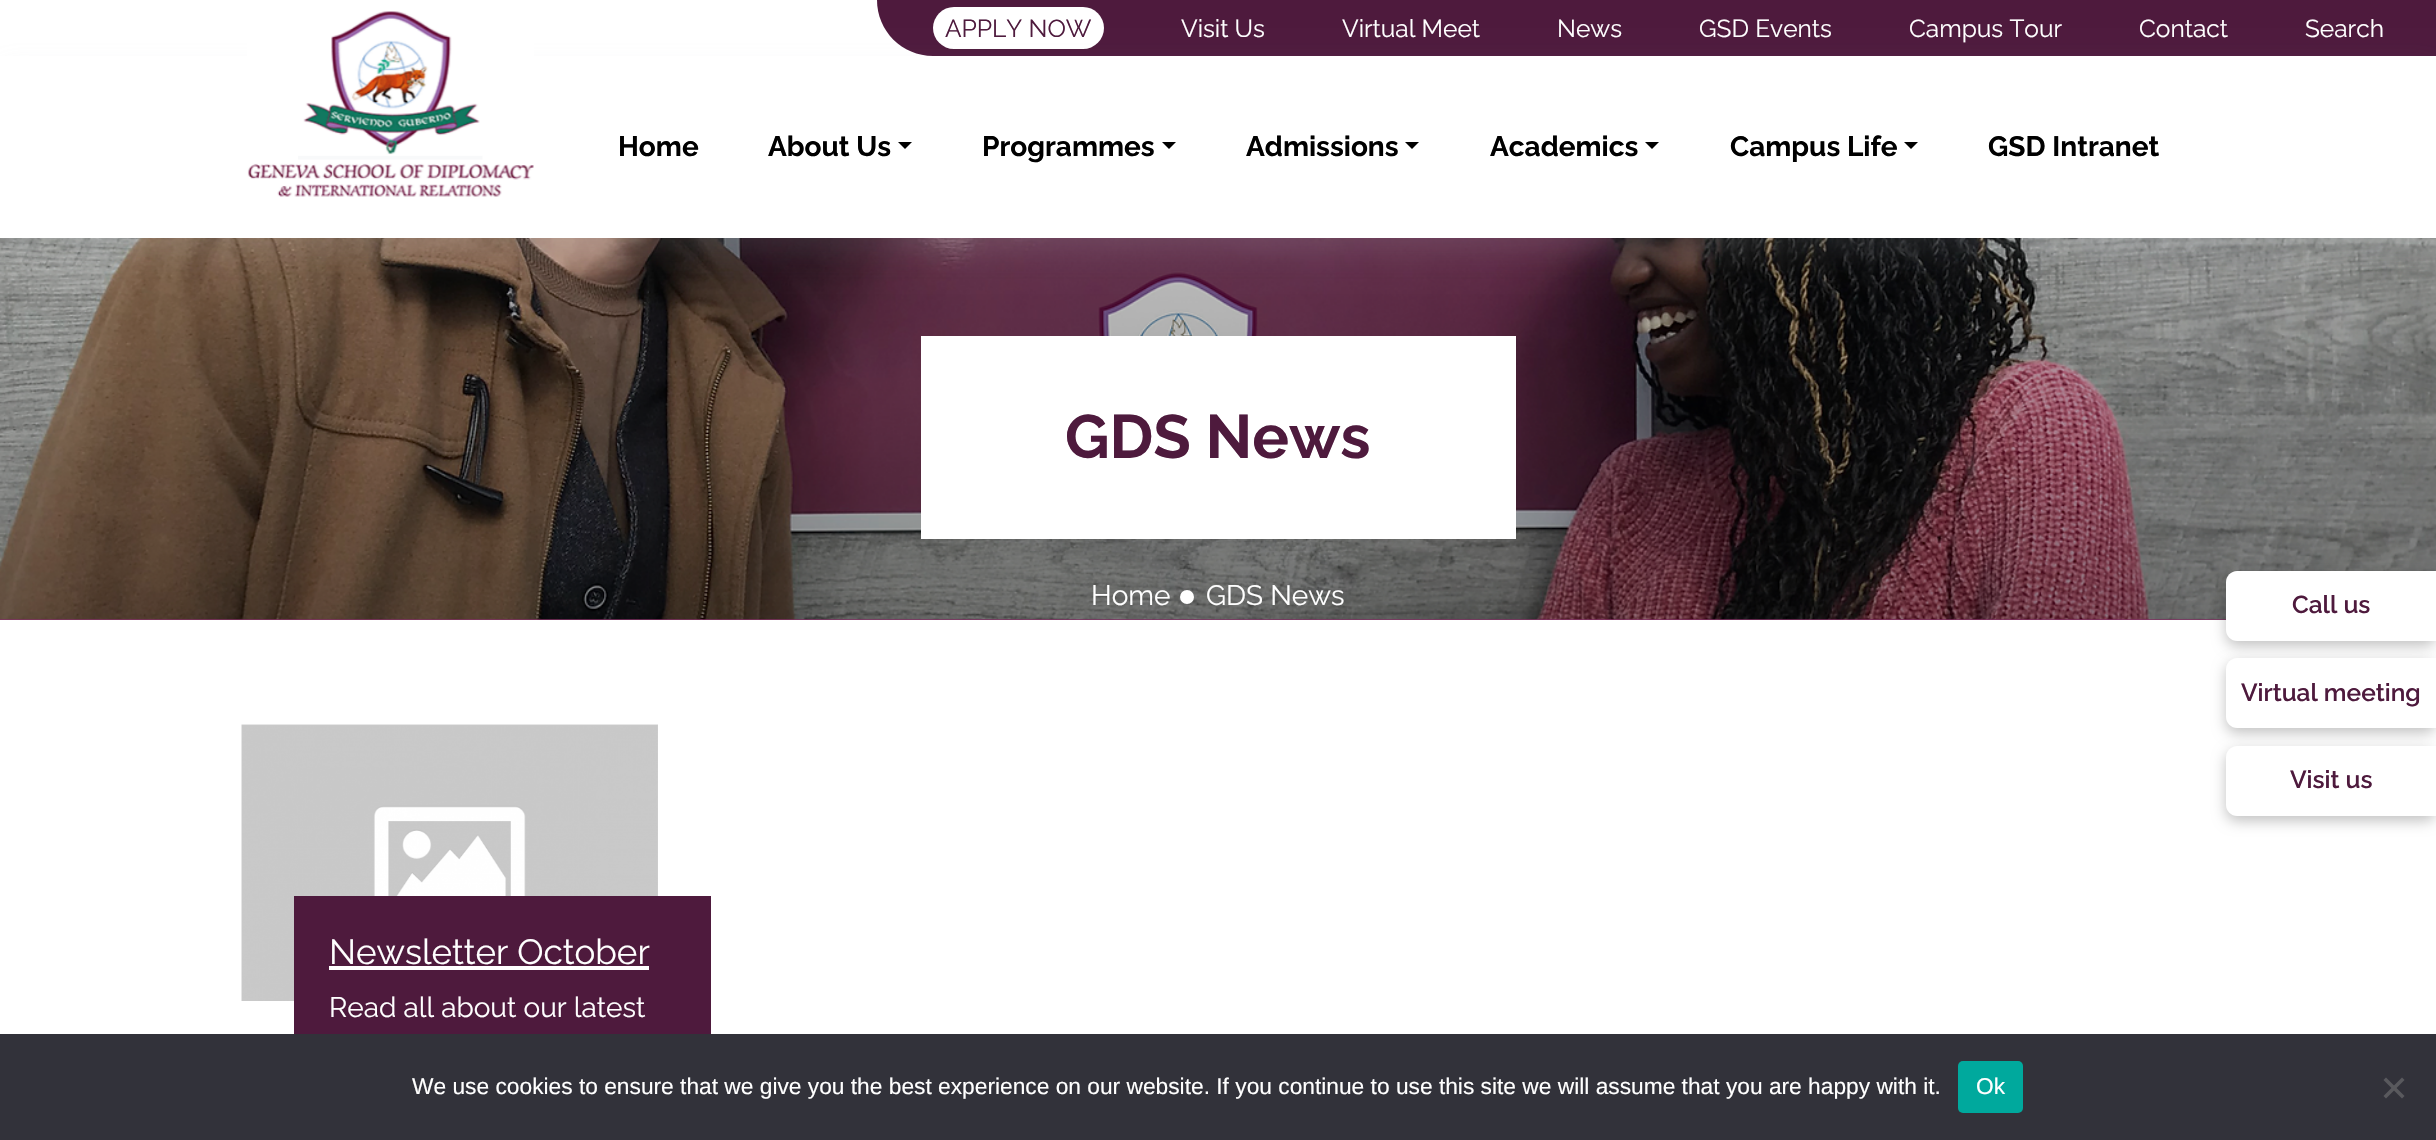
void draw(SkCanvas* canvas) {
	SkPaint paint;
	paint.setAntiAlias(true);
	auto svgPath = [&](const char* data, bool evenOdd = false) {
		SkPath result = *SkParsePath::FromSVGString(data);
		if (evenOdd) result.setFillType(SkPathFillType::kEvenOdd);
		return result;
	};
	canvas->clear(0xffffffff);
	paint.setColor(0xff4e1a3d);
	canvas->drawPath(svgPath("M877 0H2436V56H933C902 56 877 31 877 0Z"), paint);
	paint.setColor(0xffffffff);
	canvas->drawRoundRect(SkRect::MakeXYWH(933, 7, 171, 42), 21, 21, paint);
	SkFont f1(fontMgr->matchFamilyStyle("Raleway", SkFontStyle::Normal()), 24.5);
	f1.setSubpixel(true);
	paint.setColor(0xff4e1a3d);
	canvas->drawString("APPLY NOW", 945, 37, f1, paint);
	paint.setColor(0xffffffff);
	canvas->drawString("Visit Us", 1181, 37, f1, paint);
	canvas->drawString("Virtual Meet", 1342, 37, f1, paint);
	canvas->drawString("News", 1557, 37, f1, paint);
	canvas->drawString("GSD Events", 1699, 37, f1, paint);
	canvas->drawString("Campus Tour", 1909, 37, f1, paint);
	canvas->drawString("Contact", 2139, 37, f1, paint);
	canvas->drawString("Search", 2305, 37, f1, paint);
	paint.setColor(0xff7e3061);
	canvas->drawRect(SkRect::MakeXYWH(0, 619, 2226, 1), paint);
	canvas->drawImageRect(SkImages::DeferredFromEncodedData(SkData::MakeFromFileName("img2.png")), SkRect::MakeXYWH(0, 238, 2436, 382), SkSamplingOptions());
	canvas->save();
	canvas->clipPath(svgPath("M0 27H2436V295H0ZM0 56H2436V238H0Z", true), true);
	paint.setColor(0x26adb5bd);
	paint.setMaskFilter(SkMaskFilter::MakeBlur(kNormal_SkBlurStyle, 14));
	canvas->drawRect(SkRect::MakeXYWH(0, 70, 2436, 182), paint);
	paint.setMaskFilter(nullptr);
	canvas->restore();
	canvas->drawImageRect(SkImages::DeferredFromEncodedData(SkData::MakeFromFileName("img1.png")), SkRect::MakeXYWH(247, 11, 287, 186), SkSamplingOptions());
	SkFont f2(fontMgr->matchFamilyStyle("Raleway", SkFontStyle::Bold()), 28);
	f2.setSubpixel(true);
	paint.setColor(0xff000000);
	canvas->drawString("Home", 618, 156, f2, paint);
	canvas->drawString("About Us", 768, 156, f2, paint);
	canvas->drawPath(svgPath("M898 142H912L905 149Z"), paint);
	canvas->drawString("Programmes", 982, 156, f2, paint);
	canvas->drawPath(svgPath("M1162 142H1176L1169 149Z"), paint);
	canvas->drawString("Admissions", 1246, 156, f2, paint);
	canvas->drawPath(svgPath("M1405 142H1419L1412 149Z"), paint);
	canvas->drawString("Academics", 1490, 156, f2, paint);
	canvas->drawPath(svgPath("M1645 142H1659L1652 149Z"), paint);
	canvas->drawString("Campus Life", 1730, 156, f2, paint);
	canvas->drawPath(svgPath("M1904 142H1918L1911 149Z"), paint);
	canvas->drawString("GSD Intranet", 1988, 156, f2, paint);
	paint.setColor(0xffffffff);
	canvas->drawRect(SkRect::MakeXYWH(921, 336, 595, 203), paint);
	SkFont f3(fontMgr->matchFamilyStyle("Raleway", SkFontStyle::Bold()), 61.25);
	f3.setSubpixel(true);
	paint.setColor(0xff4e1a3d);
	canvas->drawString("GDS News", 1065, 458, f3, paint);
	SkFont f4(fontMgr->matchFamilyStyle("Raleway", SkFontStyle::Normal()), 28);
	f4.setSubpixel(true);
	paint.setColor(0xffffffff);
	canvas->drawString("Home", 1091, 605, f4, paint);
	canvas->drawCircle(1187, 597, 7, paint);
	canvas->drawString("GDS News", 1206, 605, f4, paint);
	paint.setColor(0x3d000000);
	paint.setMaskFilter(SkMaskFilter::MakeBlur(kNormal_SkBlurStyle, 7));
	canvas->drawRoundRect(SkRect::MakeXYWH(2226, 576, 210, 70), 11, 11, paint);
	paint.setMaskFilter(nullptr);
	paint.setColor(0xffffffff);
	canvas->drawPath(svgPath("M2237 571H2436V641H2237C2231 641 2226 636 2226 630V582C2226 576 2231 571 2237 571Z"), paint);
	SkFont f5(fontMgr->matchFamilyStyle("Raleway", SkFontStyle(600, SkFontStyle::kNormal_Width, SkFontStyle::kUpright_Slant)), 24.5);
	f5.setSubpixel(true);
	paint.setColor(0xff4e1a3d);
	canvas->drawString("Call us", 2292, 613, f5, paint);
	paint.setColor(0x3d000000);
	paint.setMaskFilter(SkMaskFilter::MakeBlur(kNormal_SkBlurStyle, 7));
	canvas->drawRoundRect(SkRect::MakeXYWH(2226, 663, 210, 70), 11, 11, paint);
	paint.setMaskFilter(nullptr);
	paint.setColor(0xffffffff);
	canvas->drawPath(svgPath("M2237 658H2436V728H2237C2231 728 2226 723 2226 717V669C2226 663 2231 658 2237 658Z"), paint);
	paint.setColor(0xff4e1a3d);
	canvas->drawString("Virtual meeting", 2241, 701, f5, paint);
	paint.setColor(0x3d000000);
	paint.setMaskFilter(SkMaskFilter::MakeBlur(kNormal_SkBlurStyle, 7));
	canvas->drawRoundRect(SkRect::MakeXYWH(2226, 751, 210, 70), 11, 11, paint);
	paint.setMaskFilter(nullptr);
	paint.setColor(0xffffffff);
	canvas->drawPath(svgPath("M2237 746H2436V816H2237C2231 816 2226 811 2226 805V757C2226 751 2231 746 2237 746Z"), paint);
	paint.setColor(0xff4e1a3d);
	canvas->drawString("Visit us", 2290, 788, f5, paint);
	canvas->drawImageRect(SkImages::DeferredFromEncodedData(SkData::MakeFromFileName("img3.png")), SkRect::MakeXYWH(241, 724, 417, 277), SkSamplingOptions());
	canvas->drawRect(SkRect::MakeXYWH(294, 896, 417, 138), paint);
	SkFont f6(fontMgr->matchFamilyStyle("Raleway", SkFontStyle::Normal()), 35);
	f6.setSubpixel(true);
	paint.setColor(0xffffffff);
	canvas->drawString("Newsletter October", 329, 964, f6, paint);
	canvas->drawRect(SkRect::MakeXYWH(329, 966, 320, 4), paint);
	canvas->drawString("Read all about our latest", 329, 1017, f4, paint);
	paint.setColor(0xff32323a);
	canvas->drawRect(SkRect::MakeXYWH(0, 1034, 2436, 106), paint);
	SkFont f7(fontMgr->matchFamilyStyle("Liberation Sans", SkFontStyle::Normal()), 22.75);
	f7.setSubpixel(true);
	paint.setColor(0xffffffff);
	canvas->drawString("We use cookies to ensure that we give you the best experience on our website. If you continue to use this site we will assume that you are happy with it.", 412, 1094, f7, paint);
	paint.setColor(0xff00a99d);
	canvas->drawRoundRect(SkRect::MakeXYWH(1958, 1061, 65, 52), 5, 5, paint);
	paint.setColor(0xffffffff);
	canvas->drawString("Ok", 1976, 1094, f7, paint);
	paint.setColor(0xff59595d);
	canvas->drawPath(svgPath("M2402 1077.5L2404.5 1080L2386 1098.5L2383.5 1096Z"), paint);
	canvas->drawPath(svgPath("M2383.5 1080L2386 1077.5L2404.5 1096L2402 1098.5Z"), paint);
}
